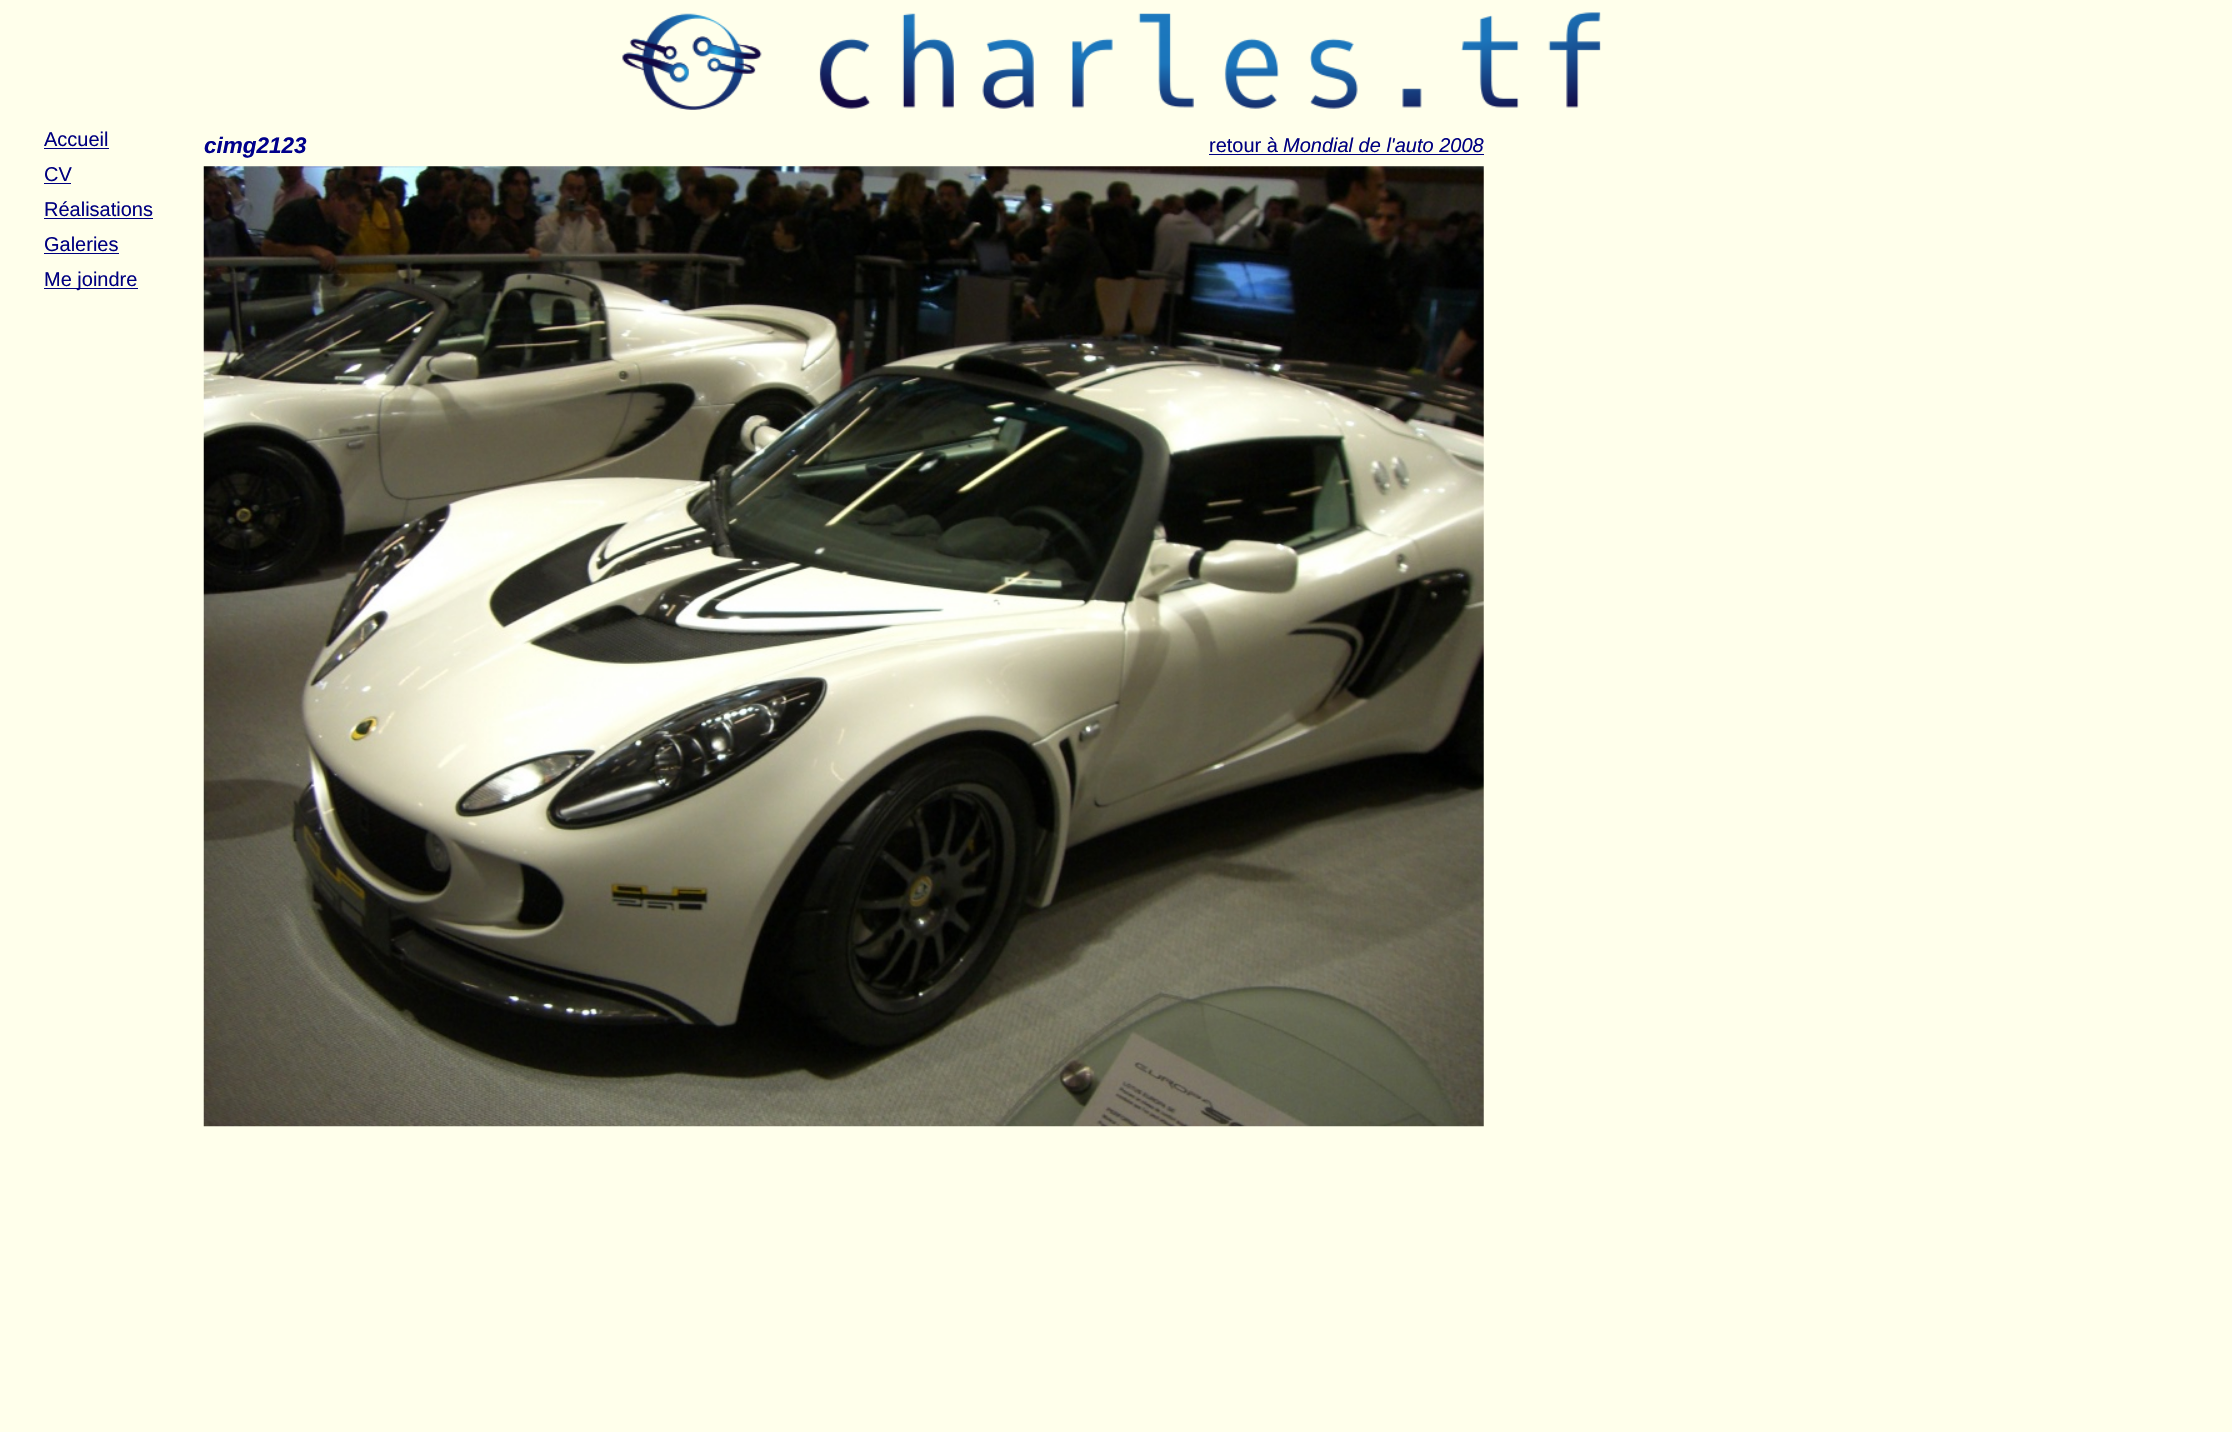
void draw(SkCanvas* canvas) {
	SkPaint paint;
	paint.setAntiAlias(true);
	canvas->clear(0xffffffeb);
	canvas->drawImageRect(SkImages::DeferredFromEncodedData(SkData::MakeFromFileName("img1.png")), SkRect::MakeXYWH(622, 12, 979, 98), SkSamplingOptions());
	SkFont f1(fontMgr->matchFamilyStyle("Liberation Sans", SkFontStyle::Normal()), 20);
	f1.setSubpixel(true);
	paint.setColor(0xff000080);
	canvas->drawString("Accueil", 44, 146, f1, paint);
	canvas->drawRect(SkRect::MakeXYWH(44, 148, 65, 1), paint);
	canvas->drawString("CV", 44, 181, f1, paint);
	canvas->drawRect(SkRect::MakeXYWH(44, 183, 27, 1), paint);
	canvas->drawString("Réalisations", 44, 216, f1, paint);
	canvas->drawRect(SkRect::MakeXYWH(44, 218, 109, 1), paint);
	canvas->drawString("Galeries", 44, 251, f1, paint);
	canvas->drawRect(SkRect::MakeXYWH(44, 253, 75, 1), paint);
	canvas->drawRect(SkRect::MakeXYWH(44, 288, 94, 1), paint);
	canvas->drawString("Me joindre", 44, 286, f1, paint);
	SkFont f2(fontMgr->matchFamilyStyle("Liberation Sans", SkFontStyle::BoldItalic()), 22.5);
	f2.setSubpixel(true);
	paint.setColor(0xff00008b);
	canvas->drawString("cimg2123", 204, 153, f2, paint);
	paint.setColor(0xff000080);
	canvas->drawString("retour à", 1209, 152, f1, paint);
	canvas->drawRect(SkRect::MakeXYWH(1209, 154, 275, 1), paint);
	SkFont f3(fontMgr->matchFamilyStyle("Liberation Sans", SkFontStyle::Italic()), 20);
	f3.setSubpixel(true);
	canvas->drawString("Mondial de l'auto 2008", 1283, 152, f3, paint);
	canvas->drawImageRect(SkImages::DeferredFromEncodedData(SkData::MakeFromFileName("img2.png")), SkRect::MakeXYWH(203, 166, 1281, 961), SkSamplingOptions());
}
